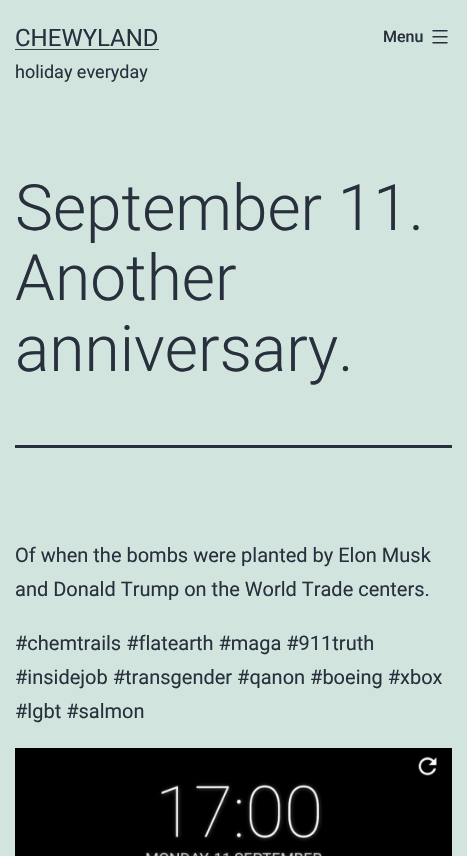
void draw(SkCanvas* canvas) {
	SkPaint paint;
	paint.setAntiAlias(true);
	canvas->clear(0xffd1e4dd);
	SkFont f1(fontMgr->matchFamilyStyle("Roboto", SkFontStyle::Normal()), 24);
	f1.setSubpixel(true);
	paint.setColor(0xff28303d);
	canvas->drawString("CHEWYLAND", 15, 46, f1, paint);
	paint.setColor(0xff39414d);
	canvas->drawRect(SkRect::MakeXYWH(15, 49, 144, 1), paint);
	SkFont f2(fontMgr->matchFamilyStyle("Roboto", SkFontStyle::Normal()), 18);
	f2.setSubpixel(true);
	paint.setColor(0xff28303d);
	canvas->drawString("holiday everyday", 15, 78, f2, paint);
	SkFont f3(fontMgr->matchFamilyStyle("Roboto", SkFontStyle(500, SkFontStyle::kNormal_Width, SkFontStyle::kUpright_Slant)), 16);
	f3.setSubpixel(true);
	canvas->drawString("Menu", 383, 42, f3, paint);
	canvas->drawImageRect(SkImages::DeferredFromEncodedData(SkData::MakeFromFileName("img1.png")), SkRect::MakeXYWH(432, 30, 16, 14), SkSamplingOptions());
	canvas->drawRect(SkRect::MakeXYWH(15, 445, 437, 3), paint);
	SkFont f4(fontMgr->matchFamilyStyle("Roboto", SkFontStyle(300, SkFontStyle::kNormal_Width, SkFontStyle::kUpright_Slant)), 64);
	f4.setSubpixel(true);
	canvas->drawString("September 11.", 15, 230, f4, paint);
	canvas->drawString("Another", 15, 300, f4, paint);
	canvas->drawString("anniversary.", 15, 371, f4, paint);
	SkFont f5(fontMgr->matchFamilyStyle("Roboto", SkFontStyle::Normal()), 20);
	f5.setSubpixel(true);
	canvas->drawString("Of when the bombs were planted by Elon Musk", 15, 562, f5, paint);
	canvas->drawString("and Donald Trump on the World Trade centers.", 15, 596, f5, paint);
	canvas->drawString("#chemtrails #flatearth #maga #911truth", 15, 650, f5, paint);
	canvas->drawString("#insidejob #transgender #qanon #boeing #xbox", 15, 684, f5, paint);
	canvas->drawString("#lgbt #salmon", 15, 718, f5, paint);
	canvas->drawImageRect(SkImages::DeferredFromEncodedData(SkData::MakeFromFileName("img2.png")), SkRect::MakeXYWH(15, 748, 437, 108), SkSamplingOptions());
}
